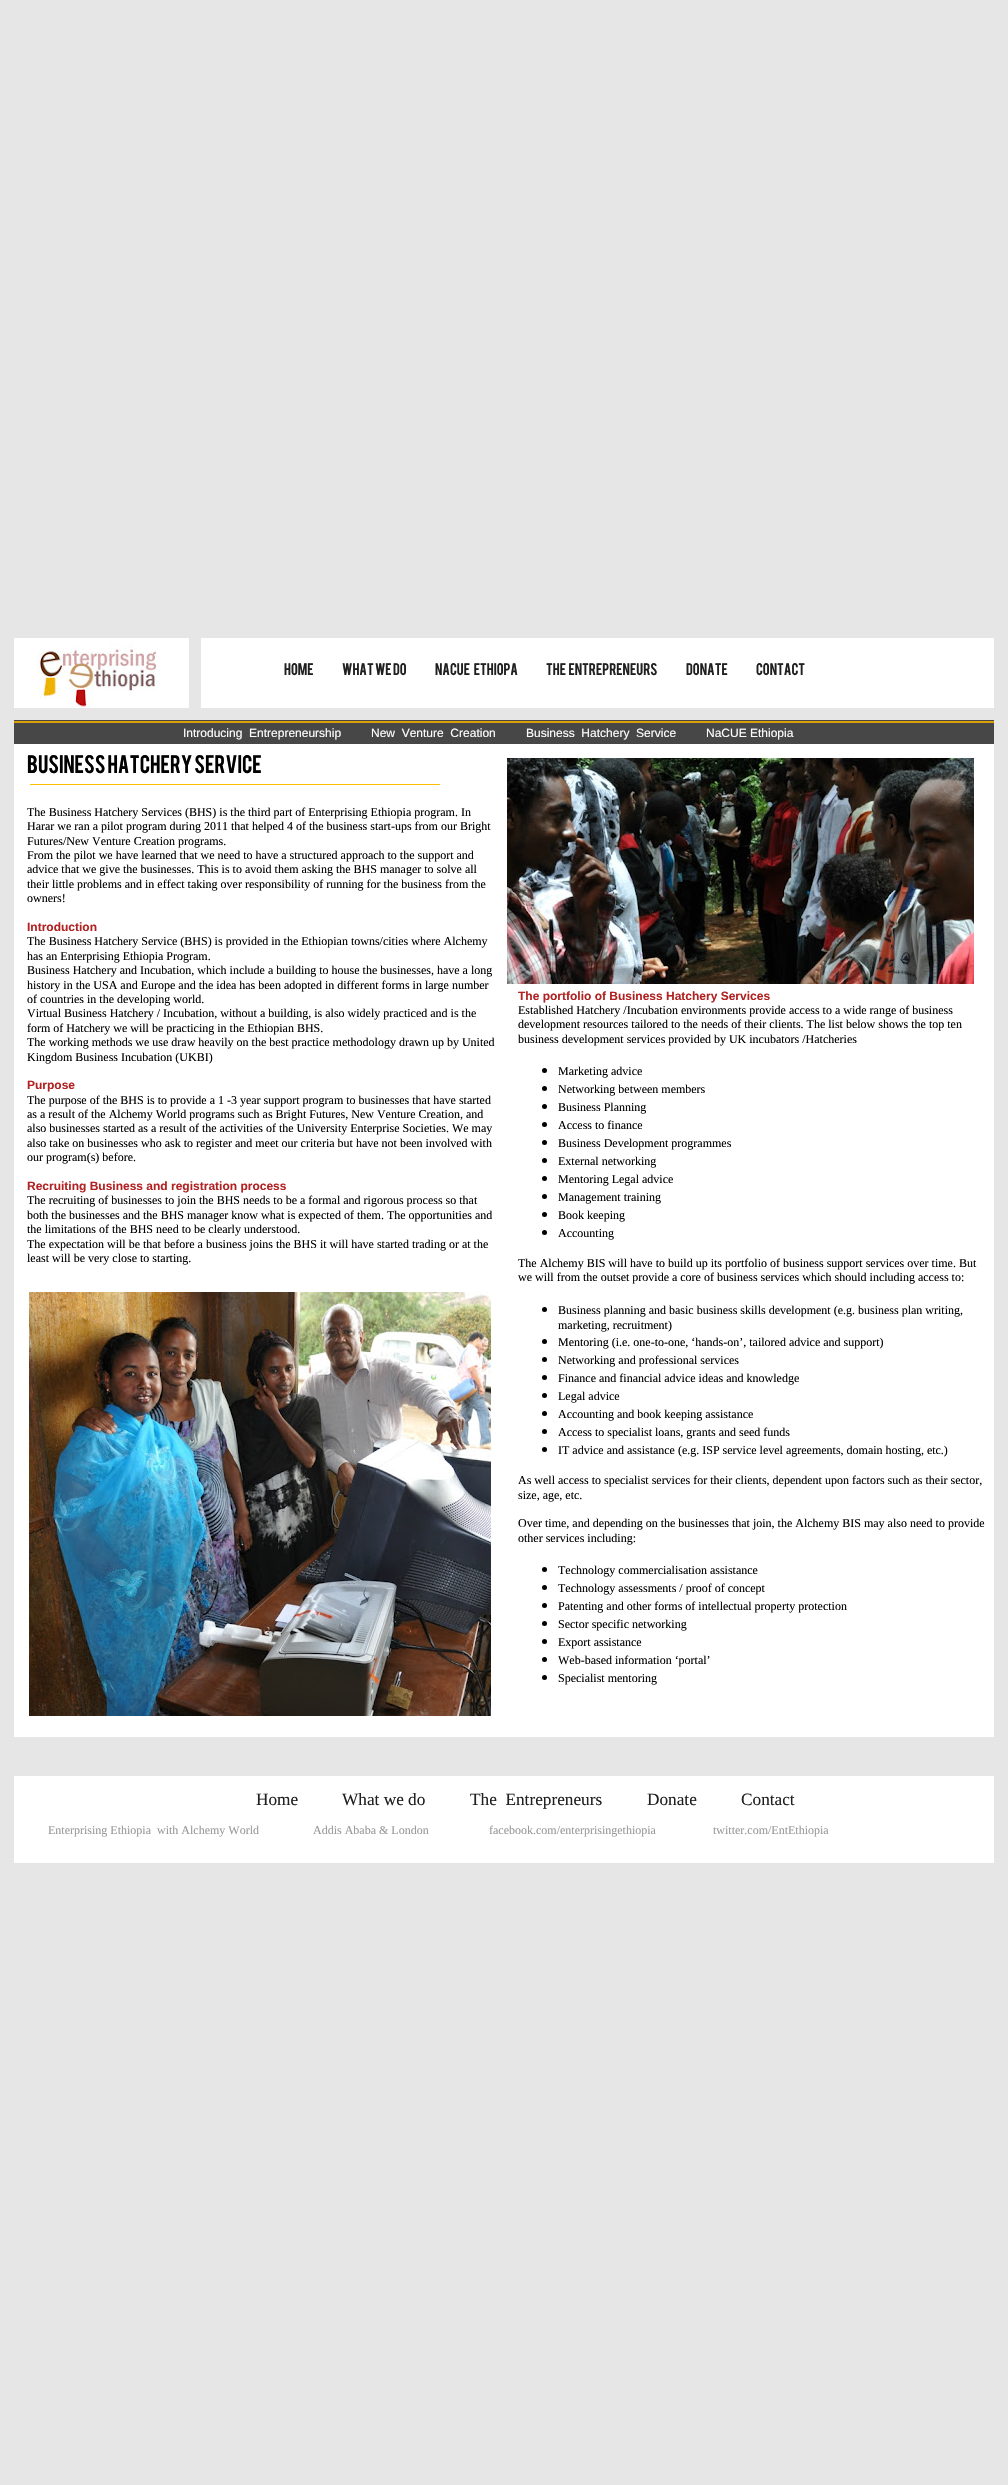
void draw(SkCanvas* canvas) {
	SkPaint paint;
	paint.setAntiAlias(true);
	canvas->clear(0xffe6e6e6);
	paint.setColor(0xffffffff);
	canvas->drawRect(SkRect::MakeXYWH(14, 638, 980, 1225), paint);
	canvas->drawImageRect(SkImages::DeferredFromEncodedData(SkData::MakeFromFileName("img1.png")), SkRect::MakeXYWH(37, 643, 120, 64), SkSamplingOptions());
	paint.setColor(0xffe6e6e6);
	canvas->drawRect(SkRect::MakeXYWH(189, 638, 12, 70), paint);
	SkFont f1(fontMgr->matchFamilyStyle("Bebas", SkFontStyle::Normal()), 13.25);
	f1.setSubpixel(true);
	paint.setColor(0xff202020);
	canvas->drawString("HOME", 284, 675, f1, paint);
	canvas->drawString("WHAT WE DO", 342, 675, f1, paint);
	canvas->drawString("NaCUE   Ethiopa", 435, 675, f1, paint);
	canvas->drawString("THE  ENTREPRENEURS", 546, 675, f1, paint);
	canvas->drawString("DONATE", 686, 675, f1, paint);
	canvas->drawString("CONTACT", 756, 675, f1, paint);
	paint.setColor(0xffe6e6e6);
	canvas->drawRect(SkRect::MakeXYWH(14, 708, 980, 12), paint);
	paint.setColor(0xff474747);
	canvas->drawRect(SkRect::MakeXYWH(14, 720, 980, 24), paint);
	paint.setColor(0xffdb9f07);
	canvas->drawRect(SkRect::MakeXYWH(14, 721, 980, 2), paint);
	SkFont f2(fontMgr->matchFamilyStyle("Liberation Sans", SkFontStyle::Normal()), 12);
	f2.setSubpixel(true);
	paint.setColor(0xffffffff);
	canvas->drawString("Introducing  Entrepreneurship", 183, 737, f2, paint);
	canvas->drawString("New  Venture  Creation", 371, 737, f2, paint);
	canvas->drawString("Business  Hatchery  Service", 526, 737, f2, paint);
	canvas->drawString("NaCUE Ethiopia", 706, 737, f2, paint);
	SkFont f3(fontMgr->matchFamilyStyle("Bebas", SkFontStyle::Normal()), 20);
	f3.setSubpixel(true);
	paint.setColor(0xff000000);
	canvas->drawString("Business HATCHERY Service", 27, 773, f3, paint);
	SkFont f4(fontMgr->matchFamilyStyle("Liberation Serif", SkFontStyle::Normal()), 12);
	f4.setSubpixel(true);
	canvas->drawString("The Business Hatchery Services (BHS) is the third part of Enterprising Ethiopia program. In", 27, 816, f4, paint);
	canvas->drawString("Harar we ran a pilot program during 2011 that helped 4 of the business start-ups from our Bright", 27, 830, f4, paint);
	canvas->drawString("Futures/New Venture Creation programs.", 27, 845, f4, paint);
	canvas->drawString("From the pilot we have learned that we need to have a structured approach to the support and", 27, 859, f4, paint);
	canvas->drawString("advice that we give the businesses. This is to avoid them asking the BHS manager to solve all", 27, 873, f4, paint);
	canvas->drawString("their little problems and in effect taking over responsibility of running for the business from the", 27, 888, f4, paint);
	canvas->drawString("owners!", 27, 902, f4, paint);
	SkFont f5(fontMgr->matchFamilyStyle("Liberation Sans", SkFontStyle::Bold()), 12);
	f5.setSubpixel(true);
	paint.setColor(0xffb22222);
	canvas->drawString("Introduction", 27, 931, f5, paint);
	paint.setColor(0xff000000);
	canvas->drawString("The Business Hatchery Service (BHS) is provided in the Ethiopian towns/cities where Alchemy", 27, 945, f4, paint);
	canvas->drawString("has an Enterprising Ethiopia Program.", 27, 960, f4, paint);
	canvas->drawString("Business Hatchery and Incubation, which include a building to house the businesses, have a long", 27, 974, f4, paint);
	canvas->drawString("history in the USA and Europe and the idea has been adopted in different forms in large number", 27, 989, f4, paint);
	canvas->drawString("of countries in the developing world.", 27, 1003, f4, paint);
	canvas->drawString("Virtual Business Hatchery / Incubation, without a building, is also widely practiced and is the", 27, 1017, f4, paint);
	canvas->drawString("form of Hatchery we will be practicing in the Ethiopian BHS.", 27, 1032, f4, paint);
	canvas->drawString("The working methods we use draw heavily on the best practice methodology drawn up by United", 27, 1046, f4, paint);
	canvas->drawString("Kingdom Business Incubation (UKBI)", 27, 1061, f4, paint);
	paint.setColor(0xffb22222);
	canvas->drawString("Purpose", 27, 1089, f5, paint);
	paint.setColor(0xff000000);
	canvas->drawString("The purpose of the BHS is to provide a 1 -3 year support program to businesses that have started", 27, 1104, f4, paint);
	canvas->drawString("as a result of the Alchemy World programs such as Bright Futures, New Venture Creation, and", 27, 1118, f4, paint);
	canvas->drawString("also businesses started as a result of the activities of the University Enterprise Societies. We may", 27, 1132, f4, paint);
	canvas->drawString("also take on businesses who ask to register and meet our criteria but have not been involved with", 27, 1147, f4, paint);
	canvas->drawString("our program(s) before.", 27, 1161, f4, paint);
	paint.setColor(0xffb22222);
	canvas->drawString("Recruiting Business and registration process", 27, 1190, f5, paint);
	paint.setColor(0xff000000);
	canvas->drawString("The recruiting of businesses to join the BHS needs to be a formal and rigorous process so that", 27, 1204, f4, paint);
	canvas->drawString("both the businesses and the BHS manager know what is expected of them. The opportunities and", 27, 1219, f4, paint);
	canvas->drawString("the limitations of the BHS need to be clearly understood.", 27, 1233, f4, paint);
	canvas->drawString("The expectation will be that before a business joins the BHS it will have started trading or at the", 27, 1248, f4, paint);
	canvas->drawString("least will be very close to starting.", 27, 1262, f4, paint);
	canvas->drawImageRect(SkImages::DeferredFromEncodedData(SkData::MakeFromFileName("img2.png")), SkRect::MakeXYWH(507, 758, 467, 226), SkSamplingOptions());
	paint.setColor(0xffffbf00);
	canvas->drawRect(SkRect::MakeXYWH(30, 784, 410, 1), paint);
	canvas->drawImageRect(SkImages::DeferredFromEncodedData(SkData::MakeFromFileName("img3.png")), SkRect::MakeXYWH(29, 1292, 462, 424), SkSamplingOptions());
	paint.setColor(0xffb22222);
	canvas->drawString("The portfolio of Business Hatchery Services", 518, 1000, f5, paint);
	paint.setColor(0xff000000);
	canvas->drawString("Established Hatchery /Incubation environments provide access to a wide range of business", 518, 1014, f4, paint);
	canvas->drawString("development resources tailored to the needs of their clients. The list below shows the top ten", 518, 1028, f4, paint);
	canvas->drawString("business development services provided by UK incubators /Hatcheries", 518, 1043, f4, paint);
	canvas->drawCircle(544.5, 1070.5, 2.5, paint);
	canvas->drawString("Marketing advice", 558, 1075, f4, paint);
	canvas->drawCircle(544.5, 1088.5, 2.5, paint);
	canvas->drawString("Networking between members", 558, 1093, f4, paint);
	canvas->drawCircle(544.5, 1106.5, 2.5, paint);
	canvas->drawString("Business Planning", 558, 1111, f4, paint);
	canvas->drawCircle(544.5, 1124.5, 2.5, paint);
	canvas->drawString("Access to finance", 558, 1129, f4, paint);
	canvas->drawCircle(544.5, 1142.5, 2.5, paint);
	canvas->drawString("Business Development programmes", 558, 1147, f4, paint);
	canvas->drawCircle(544.5, 1160.5, 2.5, paint);
	canvas->drawString("External networking", 558, 1165, f4, paint);
	canvas->drawCircle(544.5, 1178.5, 2.5, paint);
	canvas->drawString("Mentoring Legal advice", 558, 1183, f4, paint);
	canvas->drawCircle(544.5, 1196.5, 2.5, paint);
	canvas->drawString("Management training", 558, 1201, f4, paint);
	canvas->drawCircle(544.5, 1214.5, 2.5, paint);
	canvas->drawString("Book keeping", 558, 1219, f4, paint);
	canvas->drawCircle(544.5, 1232.5, 2.5, paint);
	canvas->drawString("Accounting", 558, 1237, f4, paint);
	canvas->drawString("The Alchemy BIS will have to build up its portfolio of business support services over time. But", 518, 1267, f4, paint);
	canvas->drawString("we will from the outset provide a core of business services which should including access to:", 518, 1281, f4, paint);
	canvas->drawCircle(544.5, 1309.5, 2.5, paint);
	canvas->drawString("Business planning and basic business skills development (e.g. business plan writing,", 558, 1314, f4, paint);
	canvas->drawString("marketing, recruitment)", 558, 1329, f4, paint);
	canvas->drawCircle(544.5, 1341.5, 2.5, paint);
	canvas->drawString("Mentoring (i.e. one-to-one, ‘hands-on’, tailored advice and support)", 558, 1346, f4, paint);
	canvas->drawCircle(544.5, 1359.5, 2.5, paint);
	canvas->drawString("Networking and professional services", 558, 1364, f4, paint);
	canvas->drawCircle(544.5, 1377.5, 2.5, paint);
	canvas->drawString("Finance and financial advice ideas and knowledge", 558, 1382, f4, paint);
	canvas->drawCircle(544.5, 1395.5, 2.5, paint);
	canvas->drawString("Legal advice", 558, 1400, f4, paint);
	canvas->drawCircle(544.5, 1413.5, 2.5, paint);
	canvas->drawString("Accounting and book keeping assistance", 558, 1418, f4, paint);
	canvas->drawCircle(544.5, 1431.5, 2.5, paint);
	canvas->drawString("Access to specialist loans, grants and seed funds", 558, 1436, f4, paint);
	canvas->drawCircle(544.5, 1449.5, 2.5, paint);
	canvas->drawString("IT advice and assistance (e.g. ISP service level agreements, domain hosting, etc.)", 558, 1454, f4, paint);
	canvas->drawString("As well access to specialist services for their clients, dependent upon factors such as their sector,", 518, 1484, f4, paint);
	canvas->drawString("size, age, etc.", 518, 1499, f4, paint);
	canvas->drawString("Over time, and depending on the businesses that join, the Alchemy BIS may also need to provide", 518, 1527, f4, paint);
	canvas->drawString("other services including:", 518, 1542, f4, paint);
	canvas->drawCircle(544.5, 1569.5, 2.5, paint);
	canvas->drawString("Technology commercialisation assistance", 558, 1574, f4, paint);
	canvas->drawCircle(544.5, 1587.5, 2.5, paint);
	canvas->drawString("Technology assessments / proof of concept", 558, 1592, f4, paint);
	canvas->drawCircle(544.5, 1605.5, 2.5, paint);
	canvas->drawString("Patenting and other forms of intellectual property protection", 558, 1610, f4, paint);
	canvas->drawCircle(544.5, 1623.5, 2.5, paint);
	canvas->drawString("Sector specific networking", 558, 1628, f4, paint);
	canvas->drawCircle(544.5, 1641.5, 2.5, paint);
	canvas->drawString("Export assistance", 558, 1646, f4, paint);
	canvas->drawCircle(544.5, 1659.5, 2.5, paint);
	canvas->drawString("Web-based information ‘portal’", 558, 1664, f4, paint);
	canvas->drawCircle(544.5, 1677.5, 2.5, paint);
	canvas->drawString("Specialist mentoring", 558, 1682, f4, paint);
	paint.setColor(0xffe6e6e6);
	canvas->drawRect(SkRect::MakeXYWH(14, 1737, 980, 39), paint);
	SkFont f6(fontMgr->matchFamilyStyle("Liberation Serif", SkFontStyle::Normal()), 17.25);
	f6.setSubpixel(true);
	paint.setColor(0xff202020);
	canvas->drawString("Home", 256, 1805, f6, paint);
	canvas->drawString("What we do", 342, 1805, f6, paint);
	canvas->drawString("The  Entrepreneurs", 470, 1805, f6, paint);
	canvas->drawString("Donate", 647, 1805, f6, paint);
	canvas->drawString("Contact", 741, 1805, f6, paint);
	paint.setColor(0xff999999);
	canvas->drawString("Enterprising Ethiopia", 48, 1834, f4, paint);
	canvas->drawString("with Alchemy World", 157, 1834, f4, paint);
	canvas->drawString("Addis Ababa & London", 313, 1834, f4, paint);
	canvas->drawString("facebook.com/enterprisingethiopia", 489, 1834, f4, paint);
	canvas->drawString("twitter.com/EntEthiopia", 713, 1834, f4, paint);
}
